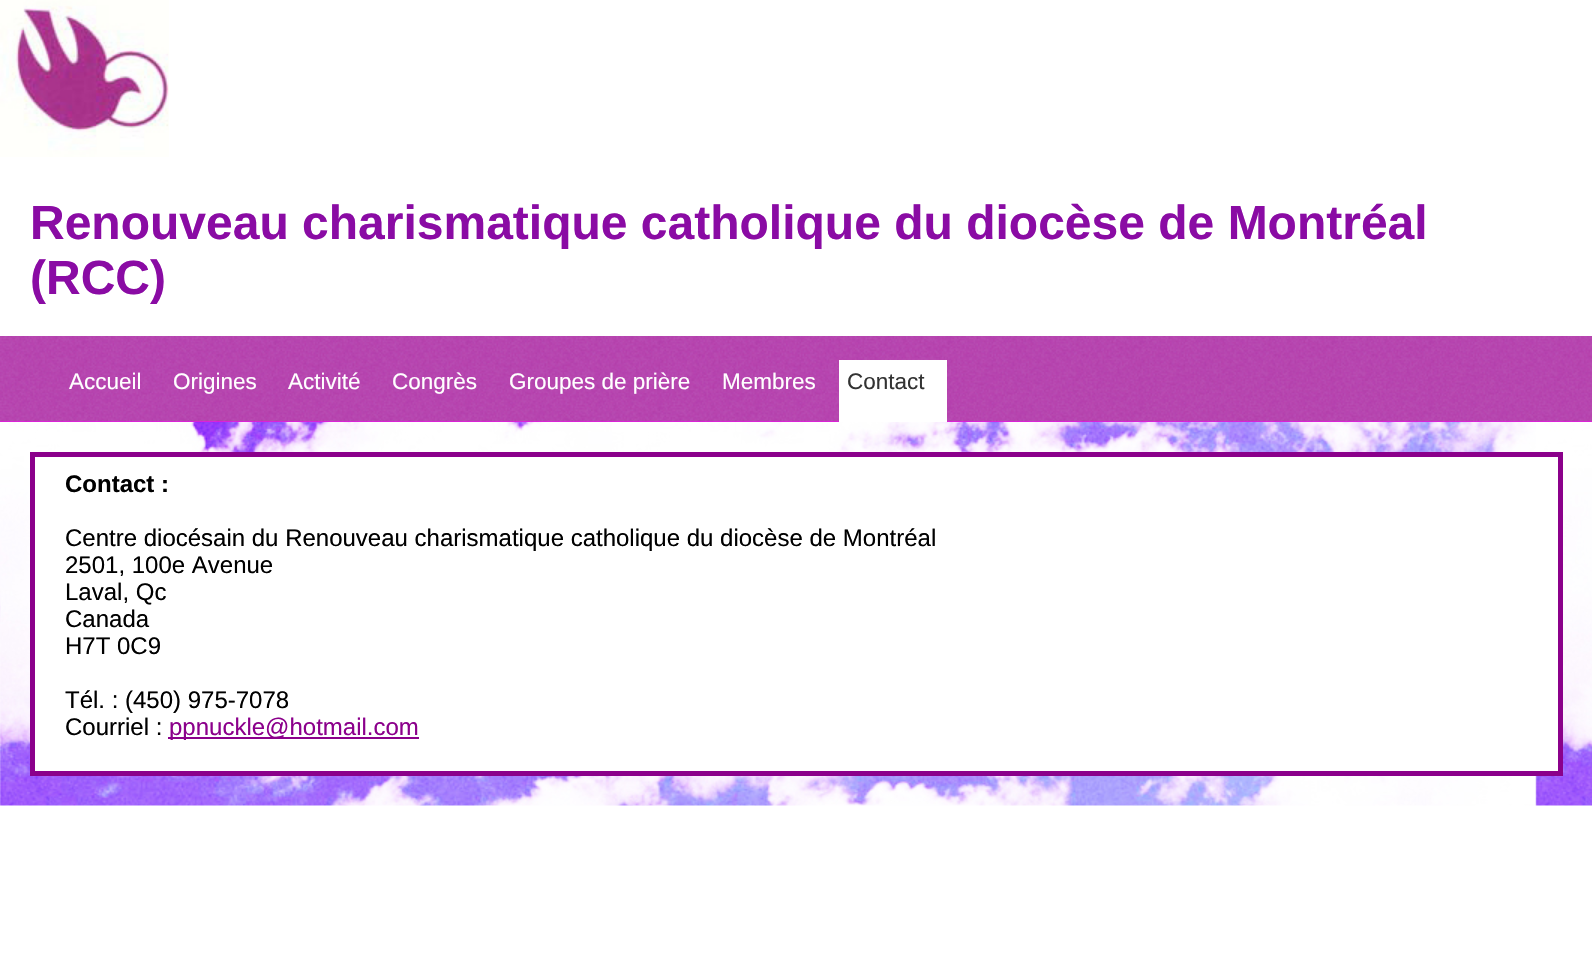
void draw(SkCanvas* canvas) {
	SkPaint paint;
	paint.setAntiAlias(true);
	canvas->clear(0xffffffff);
	canvas->drawImageRect(SkImages::DeferredFromEncodedData(SkData::MakeFromFileName("img1.png")), SkRect::MakeXYWH(0, 0, 169, 157), SkSamplingOptions());
	SkFont f1(fontMgr->matchFamilyStyle("Liberation Sans", SkFontStyle::Bold()), 48);
	f1.setSubpixel(true);
	paint.setColor(0xff8a0ba4);
	canvas->drawString("Renouveau charismatique catholique du diocèse de Montréal", 30, 239, f1, paint);
	canvas->drawString("(RCC)", 30, 294, f1, paint);
	paint.setColor(0xffff00ff);
	canvas->drawRect(SkRect::MakeXYWH(0, 421, 1592, 1), paint);
	canvas->drawImageRect(SkImages::DeferredFromEncodedData(SkData::MakeFromFileName("img2.png")), SkRect::MakeXYWH(0, 336, 1592, 86), SkSamplingOptions());
	SkFont f2(fontMgr->matchFamilyStyle("Liberation Sans", SkFontStyle::Normal()), 22.5);
	f2.setSubpixel(true);
	paint.setColor(0xffffffff);
	canvas->drawString("Accueil", 69, 389, f2, paint);
	canvas->drawString("Origines", 173, 389, f2, paint);
	canvas->drawString("Activité", 288, 389, f2, paint);
	canvas->drawString("Congrès", 392, 389, f2, paint);
	canvas->drawString("Groupes de prière", 509, 389, f2, paint);
	canvas->drawString("Membres", 722, 389, f2, paint);
	canvas->drawRect(SkRect::MakeXYWH(839, 360, 108, 62), paint);
	paint.setColor(0xff333333);
	canvas->drawString("Contact", 847, 389, f2, paint);
	canvas->drawImageRect(SkImages::DeferredFromEncodedData(SkData::MakeFromFileName("img3.png")), SkRect::MakeXYWH(0, 422, 1592, 384), SkSamplingOptions());
	paint.setColor(0xffffffff);
	canvas->drawRect(SkRect::MakeXYWH(32.5, 454.5, 1528, 319), paint);
	paint.setStroke(true);
	paint.setStrokeWidth(5);
	paint.setColor(0xff8b008b);
	canvas->drawRect(SkRect::MakeXYWH(32.5, 454.5, 1528, 319), paint);
	SkFont f3(fontMgr->matchFamilyStyle("Liberation Sans", SkFontStyle::Bold()), 24);
	f3.setSubpixel(true);
	paint.setStroke(false);
	paint.setColor(0xff000000);
	canvas->drawString("Contact :", 65, 492, f3, paint);
	SkFont f4(fontMgr->matchFamilyStyle("Liberation Sans", SkFontStyle::Normal()), 24);
	f4.setSubpixel(true);
	canvas->drawString("Centre diocésain du Renouveau charismatique catholique du diocèse de Montréal", 65, 546, f4, paint);
	canvas->drawString("2501, 100e Avenue", 65, 573, f4, paint);
	canvas->drawString("Laval, Qc", 65, 600, f4, paint);
	canvas->drawString("Canada", 65, 627, f4, paint);
	canvas->drawString("H7T 0C9", 65, 654, f4, paint);
	canvas->drawString("Tél. : (450) 975-7078", 65, 708, f4, paint);
	canvas->drawString("Courriel :", 65, 735, f4, paint);
	paint.setColor(0xff8b008b);
	canvas->drawRect(SkRect::MakeXYWH(168, 737, 251, 2), paint);
	canvas->drawString("ppnuckle@hotmail.com", 169, 735, f4, paint);
}
